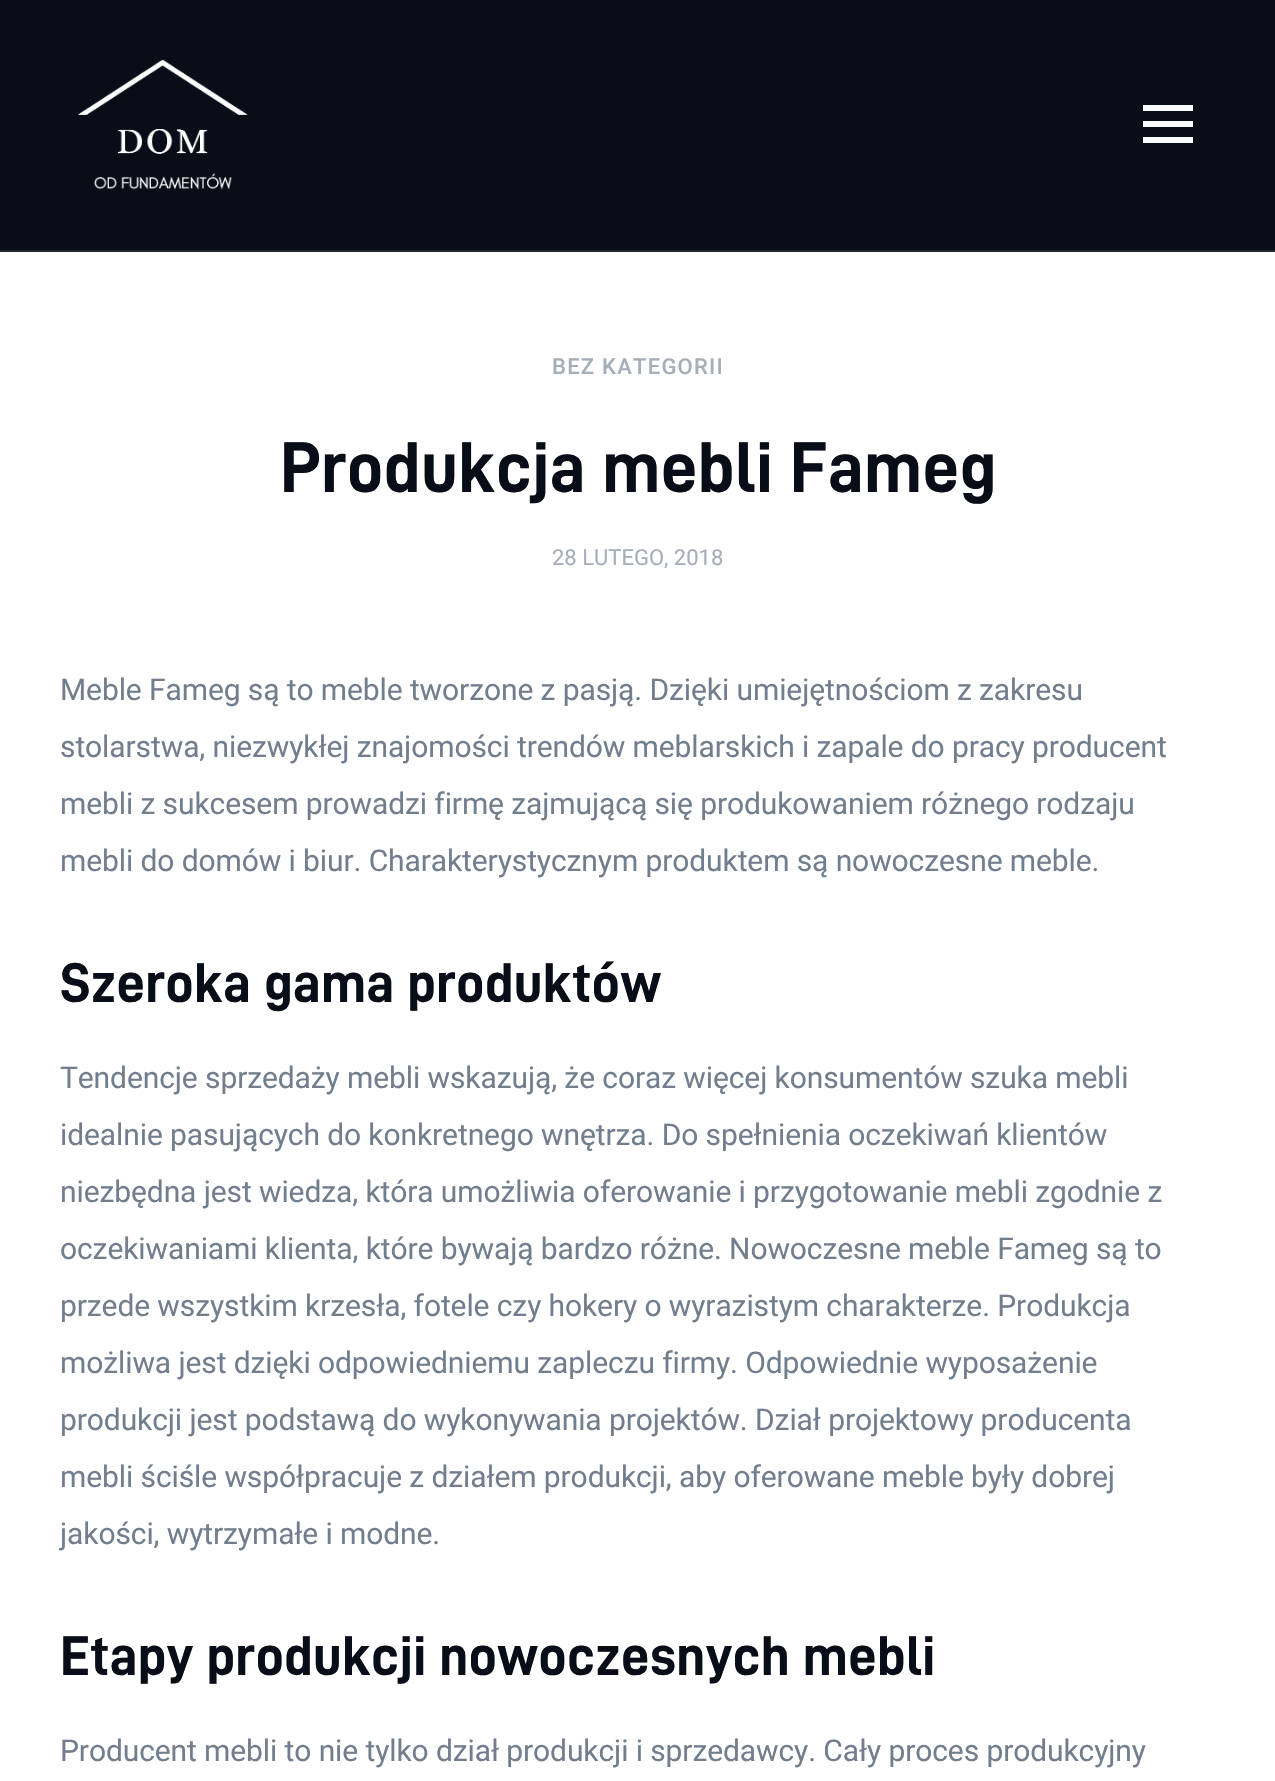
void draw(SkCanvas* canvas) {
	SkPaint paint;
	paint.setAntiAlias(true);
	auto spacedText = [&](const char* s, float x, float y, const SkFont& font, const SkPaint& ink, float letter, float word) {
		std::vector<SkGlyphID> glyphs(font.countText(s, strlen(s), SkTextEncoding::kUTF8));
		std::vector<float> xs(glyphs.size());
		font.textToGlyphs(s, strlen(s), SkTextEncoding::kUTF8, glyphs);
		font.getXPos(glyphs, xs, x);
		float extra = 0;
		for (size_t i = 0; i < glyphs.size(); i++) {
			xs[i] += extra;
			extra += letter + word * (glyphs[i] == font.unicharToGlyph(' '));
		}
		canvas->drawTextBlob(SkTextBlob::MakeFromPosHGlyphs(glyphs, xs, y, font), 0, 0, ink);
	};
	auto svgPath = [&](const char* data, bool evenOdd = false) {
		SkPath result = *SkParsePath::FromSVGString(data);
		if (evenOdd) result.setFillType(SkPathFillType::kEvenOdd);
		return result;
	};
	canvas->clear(0xffffffff);
	paint.setColor(0xff090d17);
	canvas->drawRect(SkRect::MakeXYWH(0, 0, 1275, 250), paint);
	paint.setColor(0xff222731);
	canvas->drawRect(SkRect::MakeXYWH(0, 250, 1275, 2), paint);
	canvas->drawImageRect(SkImages::DeferredFromEncodedData(SkData::MakeFromFileName("img1.png")), SkRect::MakeXYWH(78, 59, 170, 131), SkSamplingOptions());
	paint.setColor(0xfffcfcfc);
	canvas->drawPath(svgPath("M1143 143H1193V137H1143ZM1143 127H1193V121H1143ZM1143 105V111H1193V105Z"), paint);
	SkFont f1(fontMgr->matchFamilyStyle("Roboto", SkFontStyle(500, SkFontStyle::kNormal_Width, SkFontStyle::kUpright_Slant)), 22);
	f1.setSubpixel(true);
	paint.setColor(0xffa6aeb9);
	spacedText("BEZ KATEGORII", 552, 374, f1, paint, 1.25, 0);
	SkFont f2(fontMgr->matchFamilyStyle("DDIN", SkFontStyle::Bold()), 72);
	f2.setSubpixel(true);
	paint.setColor(0xff090d17);
	spacedText("Produkcja mebli Fameg", 280, 492, f2, paint, 0.1, 0);
	SkFont f3(fontMgr->matchFamilyStyle("Roboto", SkFontStyle::Normal()), 22);
	f3.setSubpixel(true);
	paint.setColor(0xffa6aeb9);
	canvas->drawString("28 LUTEGO, 2018", 552, 565, f3, paint);
	SkFont f4(fontMgr->matchFamilyStyle("Roboto", SkFontStyle::Normal()), 30);
	f4.setSubpixel(true);
	paint.setColor(0xff727e8d);
	spacedText("Meble Fameg są to meble tworzone z pasją. Dzięki umiejętnościom z zakresu", 60, 700, f4, paint, -0.1, 0);
	spacedText("stolarstwa, niezwykłej znajomości trendów meblarskich i zapale do pracy producent", 60, 757, f4, paint, -0.1, 0);
	spacedText("mebli z sukcesem prowadzi firmę zajmującą się produkowaniem różnego rodzaju", 60, 814, f4, paint, -0.1, 0);
	spacedText("mebli do domów i biur. Charakterystycznym produktem są nowoczesne meble.", 60, 871, f4, paint, -0.1, 0);
	SkFont f5(fontMgr->matchFamilyStyle("DDIN", SkFontStyle::Bold()), 56);
	f5.setSubpixel(true);
	paint.setColor(0xff090d17);
	spacedText("Szeroka gama produktów", 60, 1002, f5, paint, 0.05, 0);
	paint.setColor(0xff727e8d);
	spacedText("Tendencje sprzedaży mebli wskazują, że coraz więcej konsumentów szuka mebli", 60, 1088, f4, paint, -0.1, 0);
	spacedText("idealnie pasujących do konkretnego wnętrza. Do spełnienia oczekiwań klientów", 60, 1145, f4, paint, -0.1, 0);
	spacedText("niezbędna jest wiedza, która umożliwia oferowanie i przygotowanie mebli zgodnie z", 60, 1202, f4, paint, -0.1, 0);
	spacedText("oczekiwaniami klienta, które bywają bardzo różne. Nowoczesne meble Fameg są to", 60, 1259, f4, paint, -0.1, 0);
	spacedText("przede wszystkim krzesła, fotele czy hokery o wyrazistym charakterze. Produkcja", 60, 1316, f4, paint, -0.1, 0);
	spacedText("możliwa jest dzięki odpowiedniemu zapleczu firmy. Odpowiednie wyposażenie", 60, 1373, f4, paint, -0.1, 0);
	spacedText("produkcji jest podstawą do wykonywania projektów. Dział projektowy producenta", 60, 1430, f4, paint, -0.1, 0);
	spacedText("mebli ściśle współpracuje z działem produkcji, aby oferowane meble były dobrej", 60, 1487, f4, paint, -0.1, 0);
	spacedText("jakości, wytrzymałe i modne.", 60, 1544, f4, paint, -0.1, 0);
	paint.setColor(0xff090d17);
	spacedText("Etapy produkcji nowoczesnych mebli", 60, 1675, f5, paint, 0.05, 0);
	paint.setColor(0xff727e8d);
	spacedText("Producent mebli to nie tylko dział produkcji i sprzedawcy. Cały proces produkcyjny", 60, 1761, f4, paint, -0.1, 0);
}
